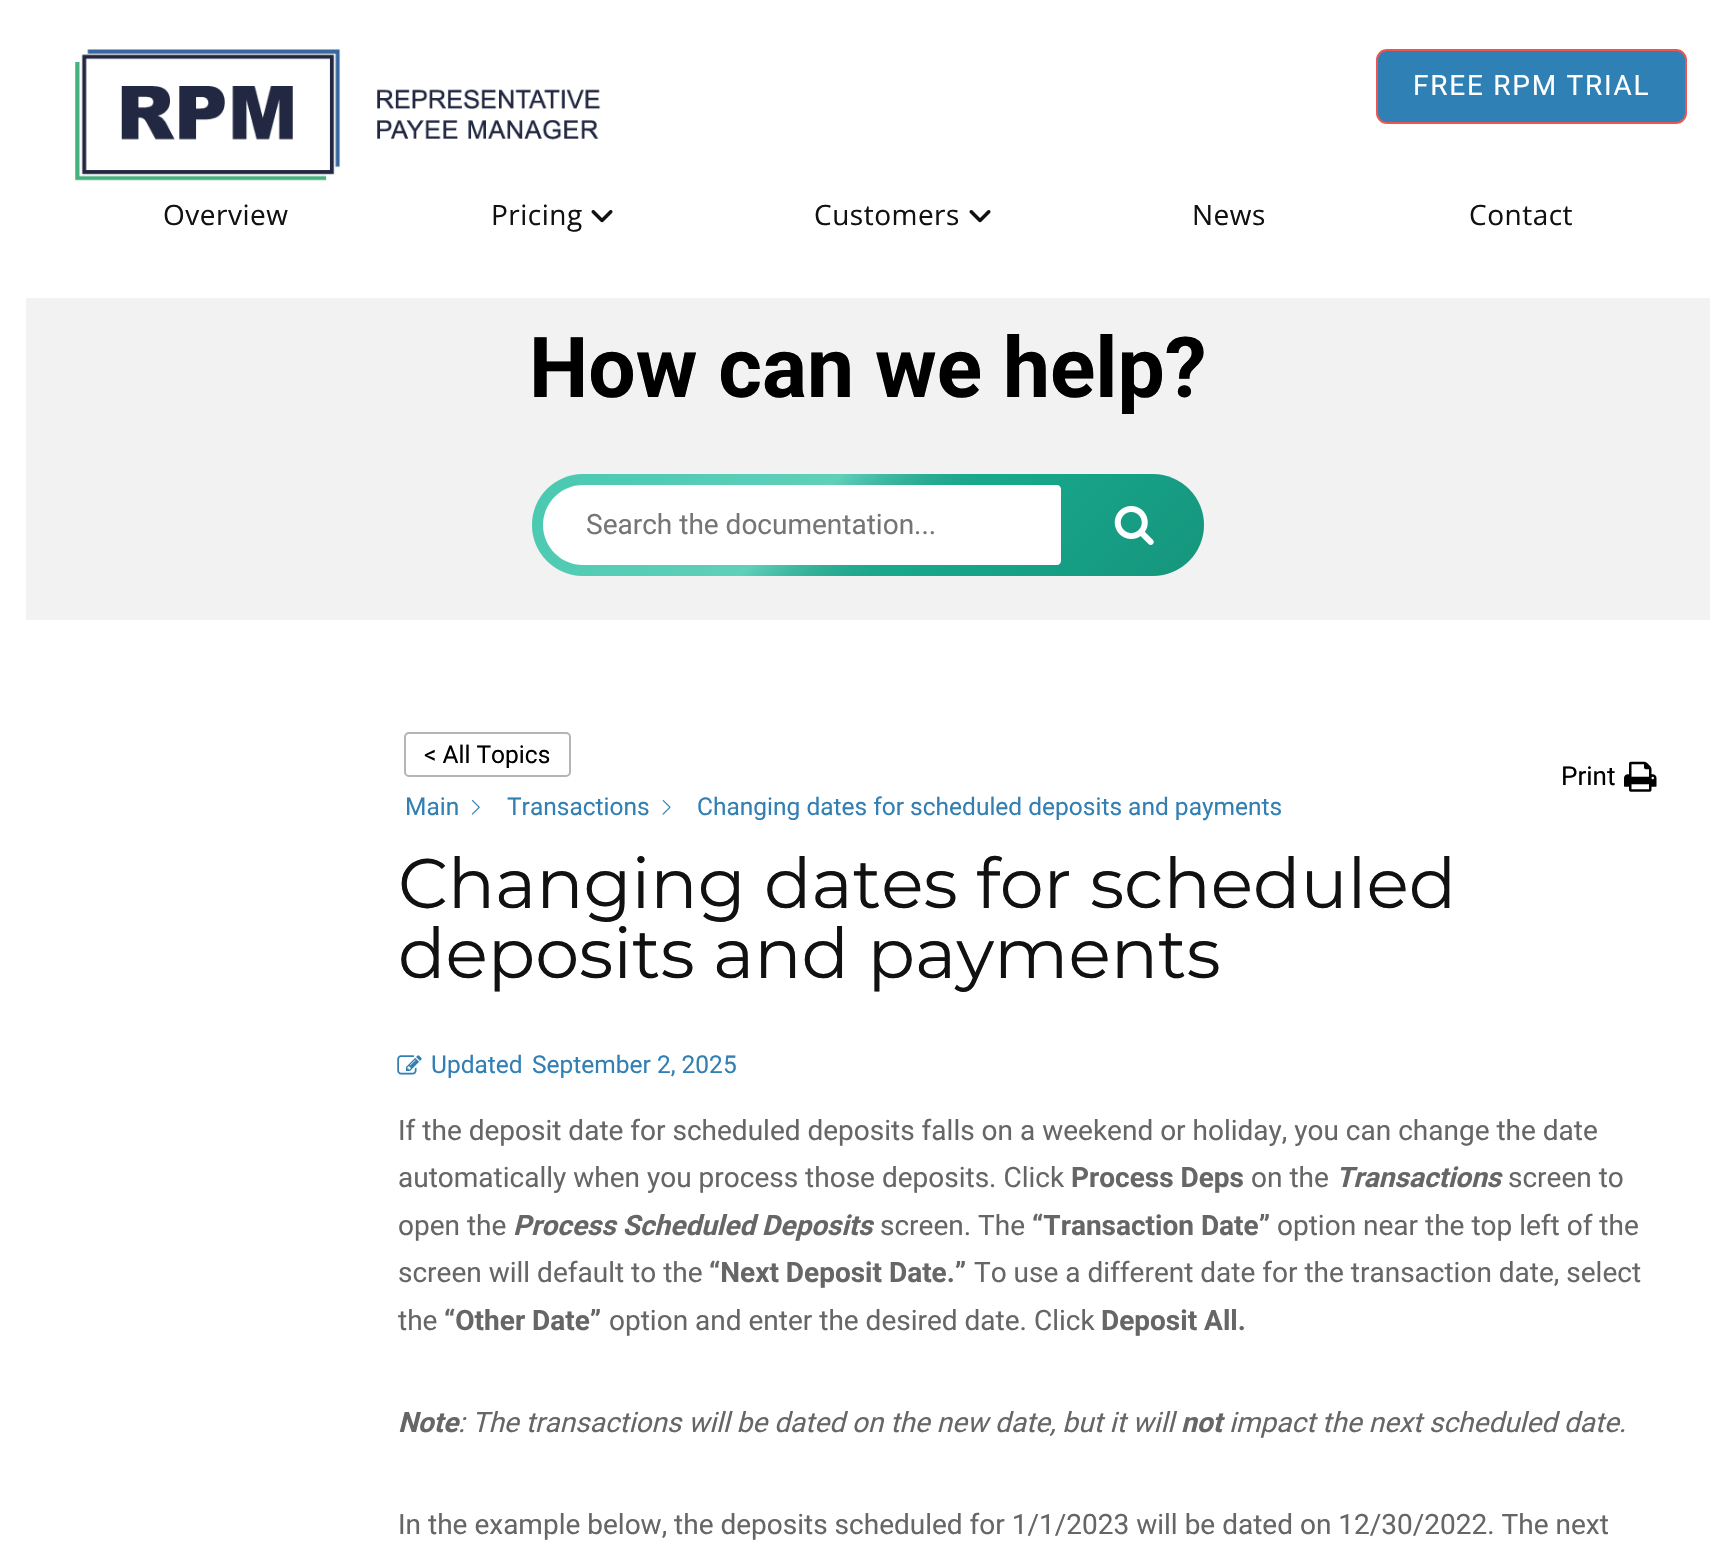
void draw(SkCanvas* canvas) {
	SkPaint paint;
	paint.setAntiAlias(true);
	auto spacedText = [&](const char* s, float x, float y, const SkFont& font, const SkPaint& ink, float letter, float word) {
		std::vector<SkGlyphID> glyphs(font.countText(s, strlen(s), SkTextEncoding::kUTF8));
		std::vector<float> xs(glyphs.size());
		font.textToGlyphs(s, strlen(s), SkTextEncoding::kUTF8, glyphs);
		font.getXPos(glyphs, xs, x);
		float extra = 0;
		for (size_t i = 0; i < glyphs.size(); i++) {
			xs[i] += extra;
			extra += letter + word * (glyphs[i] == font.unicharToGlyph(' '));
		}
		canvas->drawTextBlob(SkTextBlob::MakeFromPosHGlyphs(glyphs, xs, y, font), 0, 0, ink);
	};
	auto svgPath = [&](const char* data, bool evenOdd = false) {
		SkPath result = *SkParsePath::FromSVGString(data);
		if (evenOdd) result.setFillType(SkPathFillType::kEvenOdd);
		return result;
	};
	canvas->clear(0xffffffff);
	canvas->drawImageRect(SkImages::DeferredFromEncodedData(SkData::MakeFromFileName("img1.png")), SkRect::MakeXYWH(75, 49, 526, 132), SkSamplingOptions());
	paint.setColor(0xff2f80b5);
	canvas->drawRoundRect(SkRect::MakeXYWH(1377, 50, 309, 73), 10, 10, paint);
	paint.setStroke(true);
	paint.setStrokeWidth(2);
	paint.setColor(0xffef5455);
	canvas->drawRoundRect(SkRect::MakeXYWH(1377, 50, 309, 73), 10, 10, paint);
	SkFont f1(fontMgr->matchFamilyStyle("Roboto", SkFontStyle::Normal()), 28);
	f1.setSubpixel(true);
	paint.setStroke(false);
	paint.setColor(0xffffffff);
	spacedText("FREE RPM TRIAL", 1413, 95, f1, paint, 1.75, 0);
	SkFont f2(fontMgr->matchFamilyStyle("Open Sans", SkFontStyle::Normal()), 28);
	f2.setSubpixel(true);
	paint.setColor(0xff111111);
	spacedText("Overview", 163, 225, f2, paint, 0.5, 0);
	spacedText("Pricing", 491, 225, f2, paint, 0.5, 0);
	canvas->drawImageRect(SkImages::DeferredFromEncodedData(SkData::MakeFromFileName("img2.png")), SkRect::MakeXYWH(591, 210, 22, 13), SkSamplingOptions());
	spacedText("Customers", 814, 225, f2, paint, 0.5, 0);
	canvas->drawImageRect(SkImages::DeferredFromEncodedData(SkData::MakeFromFileName("img2.png")), SkRect::MakeXYWH(969, 210, 22, 13), SkSamplingOptions());
	spacedText("News", 1192, 225, f2, paint, 0.5, 0);
	spacedText("Contact", 1469, 225, f2, paint, 0.5, 0);
	paint.setColor(0xfff2f2f2);
	canvas->drawRect(SkRect::MakeXYWH(26, 298, 1684, 322), paint);
	SkFont f3(fontMgr->matchFamilyStyle("Roboto", SkFontStyle::Bold()), 84);
	f3.setSubpixel(true);
	paint.setColor(0xff000000);
	canvas->drawString("How can we help?", 529, 397, f3, paint);
	paint.setColor(0xff1abb9c);
	canvas->drawRoundRect(SkRect::MakeXYWH(532, 474, 672, 102), 51, 51, paint);
	{
		const SkColor colors[] = {0x33ffffff, 0x4dffffff, 0x1a000000, 0x33000000};
		const float stops[] = {0, 0.4, 0.6, 1};
		const SkPoint ends[] = {{675, 332}, {1061, 718}};
		paint.setShader(SkGradientShader::MakeLinear(ends, colors, stops, 4, SkTileMode::kClamp));
		paint.setAlpha(255);
	}
	canvas->drawRoundRect(SkRect::MakeXYWH(532, 474, 672, 102), 51, 51, paint);
	paint.setShader(nullptr);
	paint.setColor(0xffffffff);
	canvas->drawPath(svgPath("M583 485H1057C1059 485 1061 487 1061 489V561C1061 563 1059 565 1057 565H583C561 565 543 547 543 525C543 503 561 485 583 485Z"), paint);
	paint.setColor(0xff757575);
	canvas->drawString("Search the documentation...", 586, 534, f1, paint);
	canvas->drawImageRect(SkImages::DeferredFromEncodedData(SkData::MakeFromFileName("img3.png")), SkRect::MakeXYWH(1114, 506, 40, 39), SkSamplingOptions());
	paint.setStroke(true);
	paint.setColor(0xffb5b5b5);
	canvas->drawRoundRect(SkRect::MakeXYWH(405, 733, 165, 43), 4, 4, paint);
	SkFont f4(fontMgr->matchFamilyStyle("Roboto", SkFontStyle::Normal()), 24.5);
	f4.setSubpixel(true);
	paint.setStroke(false);
	paint.setColor(0xff000000);
	canvas->drawString("< All Topics", 424, 763, f4, paint);
	paint.setColor(0xff327fb4);
	canvas->drawString("Main", 405, 815, f4, paint);
	canvas->drawImageRect(SkImages::DeferredFromEncodedData(SkData::MakeFromFileName("img4.png")), SkRect::MakeXYWH(471, 800, 9, 15), SkSamplingOptions());
	canvas->drawString("Transactions", 507, 815, f4, paint);
	canvas->drawImageRect(SkImages::DeferredFromEncodedData(SkData::MakeFromFileName("img5.png")), SkRect::MakeXYWH(662, 800, 9, 15), SkSamplingOptions());
	canvas->drawString("Changing dates for scheduled deposits and payments", 697, 815, f4, paint);
	SkFont f5(fontMgr->matchFamilyStyle("Roboto", SkFontStyle::Normal()), 26);
	f5.setSubpixel(true);
	paint.setColor(0xff000000);
	canvas->drawString("Print", 1561, 785, f5, paint);
	canvas->drawImageRect(SkImages::DeferredFromEncodedData(SkData::MakeFromFileName("img6.png")), SkRect::MakeXYWH(1624, 761, 33, 31), SkSamplingOptions());
	SkFont f6(fontMgr->matchFamilyStyle("Montserrat", SkFontStyle::Normal()), 70);
	f6.setSubpixel(true);
	paint.setColor(0xff111111);
	canvas->drawString("Changing dates for scheduled", 398, 908, f6, paint);
	canvas->drawString("deposits and payments", 398, 978, f6, paint);
	canvas->drawImageRect(SkImages::DeferredFromEncodedData(SkData::MakeFromFileName("img7.png")), SkRect::MakeXYWH(397, 1055, 25, 20), SkSamplingOptions());
	paint.setColor(0xff327fb4);
	canvas->drawString("Updated", 431, 1073, f4, paint);
	canvas->drawString("September 2, 2025", 532, 1073, f4, paint);
	paint.setColor(0xff666666);
	canvas->drawString("If the deposit date for scheduled deposits falls on a weekend or holiday, you can change the date", 398, 1140, f1, paint);
	canvas->drawString("automatically when you process those deposits. Click", 398, 1187, f1, paint);
	SkFont f7(fontMgr->matchFamilyStyle("Roboto", SkFontStyle::Bold()), 28);
	f7.setSubpixel(true);
	canvas->drawString("Process Deps", 1071, 1187, f7, paint);
	canvas->drawString("on the", 1251, 1187, f1, paint);
	SkFont f8(fontMgr->matchFamilyStyle("Roboto", SkFontStyle::BoldItalic()), 28);
	f8.setSubpixel(true);
	canvas->drawString("Transactions", 1336, 1187, f8, paint);
	canvas->drawString("screen to", 1508, 1187, f1, paint);
	canvas->drawString("open the", 398, 1235, f1, paint);
	canvas->drawString("Process Scheduled Deposits", 513, 1235, f8, paint);
	canvas->drawString("screen. The", 880, 1235, f1, paint);
	canvas->drawString("“Transaction Date”", 1032, 1235, f7, paint);
	canvas->drawString("option near the top left of the", 1277, 1235, f1, paint);
	canvas->drawString("screen will default to the", 398, 1282, f1, paint);
	canvas->drawString("“Next Deposit Date.”", 709, 1282, f7, paint);
	canvas->drawString("To use a different date for the transaction date, select", 974, 1282, f1, paint);
	canvas->drawString("the", 398, 1330, f1, paint);
	canvas->drawString("“Other Date”", 444, 1330, f7, paint);
	canvas->drawString("option and enter the desired date. Click", 609, 1330, f1, paint);
	canvas->drawString("Deposit All.", 1101, 1330, f7, paint);
	canvas->drawString("Note", 398, 1432, f8, paint);
	SkFont f9(fontMgr->matchFamilyStyle("Roboto", SkFontStyle::Italic()), 28);
	f9.setSubpixel(true);
	canvas->drawString(": The transactions will be dated on the new date, but it will", 458, 1432, f9, paint);
	canvas->drawString("not", 1181, 1432, f8, paint);
	canvas->drawString("impact the next scheduled date.", 1229, 1432, f9, paint);
	canvas->drawString("In the example below, the deposits scheduled for 1/1/2023 will be dated on 12/30/2022. The next", 398, 1534, f1, paint);
}
